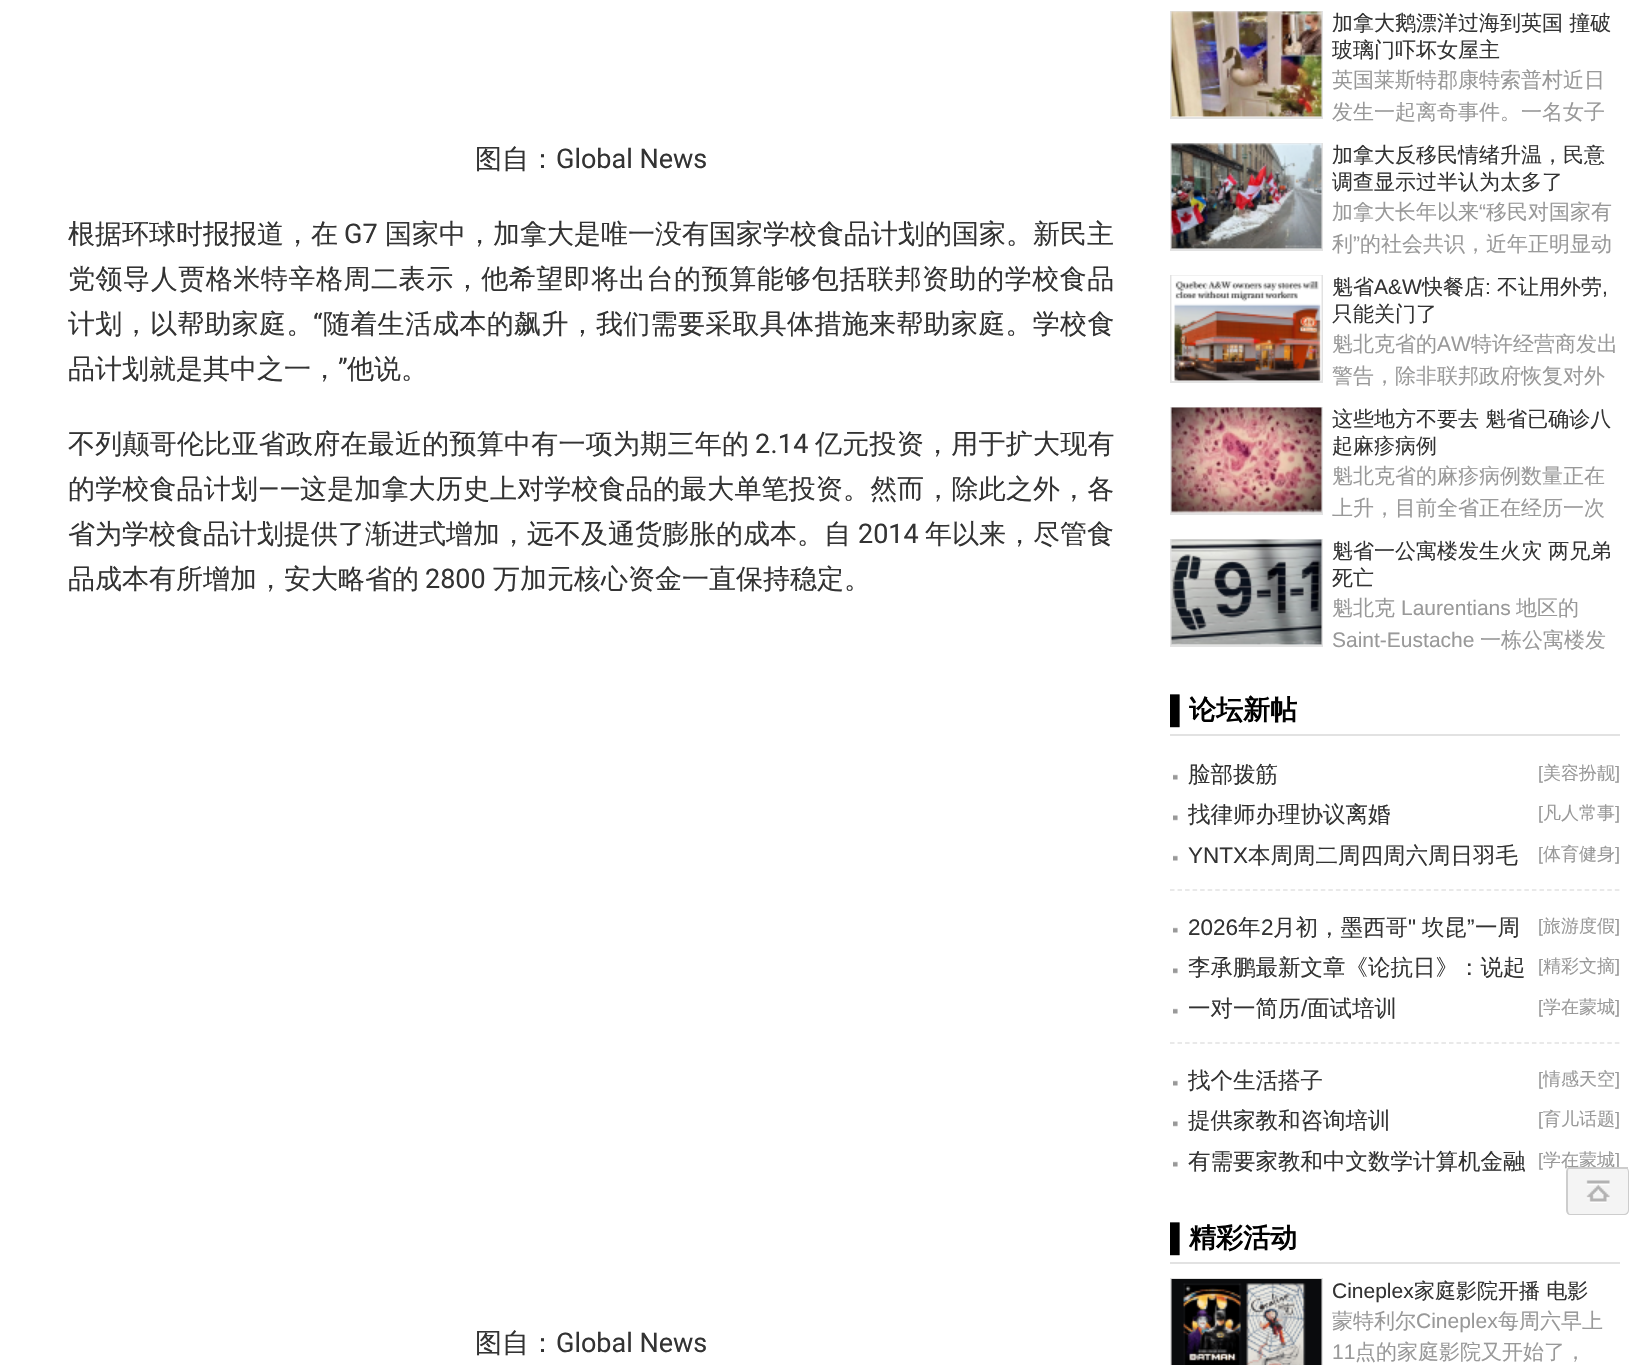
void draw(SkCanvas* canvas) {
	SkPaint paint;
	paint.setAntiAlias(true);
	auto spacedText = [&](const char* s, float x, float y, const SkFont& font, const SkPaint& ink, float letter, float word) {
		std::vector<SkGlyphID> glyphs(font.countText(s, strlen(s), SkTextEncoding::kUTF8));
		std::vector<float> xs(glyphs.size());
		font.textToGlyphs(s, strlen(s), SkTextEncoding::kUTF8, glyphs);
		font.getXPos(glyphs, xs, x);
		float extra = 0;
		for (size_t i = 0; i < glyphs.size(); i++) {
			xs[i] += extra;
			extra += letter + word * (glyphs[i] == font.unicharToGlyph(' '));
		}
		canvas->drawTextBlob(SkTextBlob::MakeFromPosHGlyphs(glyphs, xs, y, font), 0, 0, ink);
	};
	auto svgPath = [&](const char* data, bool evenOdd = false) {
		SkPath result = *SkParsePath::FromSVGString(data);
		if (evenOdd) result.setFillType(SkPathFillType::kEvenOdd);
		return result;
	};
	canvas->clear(0xffffffff);
	SkFont f1(fontMgr->matchFamilyStyle("WenQuanYi Zen Hei", SkFontStyle(500, SkFontStyle::kNormal_Width, SkFontStyle::kUpright_Slant)), 27);
	f1.setSubpixel(true);
	paint.setColor(0xff333333);
	canvas->drawString("图自：", 475, 168, f1, paint);
	SkFont f2(fontMgr->matchFamilyStyle("Roboto", SkFontStyle::Normal()), 27);
	f2.setSubpixel(true);
	canvas->drawString("Global News", 556, 168, f2, paint);
	canvas->drawString("根据环球时报报道，在", 68, 243, f1, paint);
	canvas->drawString("G7", 344, 243, f2, paint);
	canvas->drawString("国家中，加拿大是唯一没有国家学校食品计划的国家。新民主", 385, 243, f1, paint);
	spacedText("党领导人贾格米特辛格周二表示，他希望即将出台的预算能够包括联邦资助的学校食品", 68, 288, f1, paint, 0.55, 0);
	spacedText("计划，以帮助家庭。", 68, 333, f1, paint, 0.3, 0);
	spacedText("“", 313, 333, f2, paint, 0.3, 0);
	spacedText("随着生活成本的飙升，我们需要采取具体措施来帮助家庭。学校食", 323, 333, f1, paint, 0.3, 0);
	canvas->drawString("品计划就是其中之一，", 68, 378, f1, paint);
	canvas->drawString("”", 338, 378, f2, paint);
	canvas->drawString("他说。", 347, 378, f1, paint);
	spacedText("不列颠哥伦比亚省政府在最近的预算中有一项为期三年的", 68, 453, f1, paint, 0.25, 0);
	spacedText("2.14", 755, 453, f2, paint, 0.25, 0);
	spacedText("亿元投资，用于扩大现有", 815, 453, f1, paint, 0.25, 0);
	spacedText("的学校食品计划", 68, 498, f1, paint, 0.15, 0);
	spacedText("——", 258, 498, f2, paint, 0.15, 0);
	spacedText("这是加拿大历史上对学校食品的最大单笔投资。然而，除此之外，各", 300, 498, f1, paint, 0.15, 0);
	canvas->drawString("省为学校食品计划提供了渐进式增加，远不及通货膨胀的成本。自", 68, 543, f1, paint);
	canvas->drawString("2014", 858, 543, f2, paint);
	canvas->drawString("年以来，尽管食", 925, 543, f1, paint);
	canvas->drawString("品成本有所增加，安大略省的", 68, 588, f1, paint);
	canvas->drawString("2800", 425, 588, f2, paint);
	canvas->drawString("万加元核心资金一直保持稳定。", 493, 588, f1, paint);
	canvas->drawString("图自：", 475, 1352, f1, paint);
	canvas->drawString("Global News", 556, 1352, f2, paint);
	paint.setStroke(true);
	paint.setStrokeWidth(2);
	paint.setColor(0xffe2e2e2);
	canvas->drawRect(SkRect::MakeXYWH(1171, 12, 151, 106), paint);
	canvas->drawImageRect(SkImages::DeferredFromEncodedData(SkData::MakeFromFileName("img1.png")), SkRect::MakeXYWH(1171, 11, 151, 106), SkSamplingOptions());
	SkFont f3(fontMgr->matchFamilyStyle("WenQuanYi Zen Hei", SkFontStyle(500, SkFontStyle::kNormal_Width, SkFontStyle::kUpright_Slant)), 21);
	f3.setSubpixel(true);
	paint.setStroke(false);
	paint.setColor(0xff333333);
	canvas->drawString("加拿大鹅漂洋过海到英国 撞破", 1332, 30, f3, paint);
	canvas->drawString("玻璃门吓坏女屋主", 1332, 57, f3, paint);
	paint.setColor(0xff999999);
	canvas->drawString("英国莱斯特郡康特索普村近日", 1332, 87, f3, paint);
	canvas->drawString("发生一起离奇事件。一名女子", 1332, 119, f3, paint);
	paint.setStroke(true);
	paint.setColor(0xffe2e2e2);
	canvas->drawRect(SkRect::MakeXYWH(1171, 144, 151, 106), paint);
	canvas->drawImageRect(SkImages::DeferredFromEncodedData(SkData::MakeFromFileName("img2.png")), SkRect::MakeXYWH(1171, 143, 151, 106), SkSamplingOptions());
	paint.setStroke(false);
	paint.setColor(0xff333333);
	canvas->drawString("加拿大反移民情绪升温，民意", 1332, 162, f3, paint);
	canvas->drawString("调查显示过半认为太多了", 1332, 189, f3, paint);
	paint.setColor(0xff999999);
	canvas->drawString("加拿大长年以来", 1332, 219, f3, paint);
	SkFont f4(fontMgr->matchFamilyStyle("Liberation Sans", SkFontStyle::Normal()), 21);
	f4.setSubpixel(true);
	canvas->drawString("“", 1479, 219, f4, paint);
	canvas->drawString("移民对国家有", 1486, 219, f3, paint);
	canvas->drawString("利", 1332, 251, f3, paint);
	canvas->drawString("”", 1353, 251, f4, paint);
	canvas->drawString("的社会共识，近年正明显动", 1360, 251, f3, paint);
	paint.setStroke(true);
	paint.setColor(0xffe2e2e2);
	canvas->drawRect(SkRect::MakeXYWH(1171, 276, 151, 106), paint);
	canvas->drawImageRect(SkImages::DeferredFromEncodedData(SkData::MakeFromFileName("img3.png")), SkRect::MakeXYWH(1171, 275, 151, 106), SkSamplingOptions());
	paint.setStroke(false);
	paint.setColor(0xff333333);
	canvas->drawString("魁省", 1332, 294, f3, paint);
	canvas->drawString("A&W", 1374, 294, f4, paint);
	canvas->drawString("快餐店", 1422, 294, f3, paint);
	canvas->drawString(":", 1485, 294, f4, paint);
	canvas->drawString("不让用外劳", 1497, 294, f3, paint);
	canvas->drawString(",", 1602, 294, f4, paint);
	canvas->drawString("只能关门了", 1332, 321, f3, paint);
	paint.setColor(0xff999999);
	canvas->drawString("魁北克省的", 1332, 351, f3, paint);
	canvas->drawString("AW", 1437, 351, f4, paint);
	canvas->drawString("特许经营商发出", 1471, 351, f3, paint);
	canvas->drawString("警告，除非联邦政府恢复对外", 1332, 383, f3, paint);
	paint.setStroke(true);
	paint.setColor(0xffe2e2e2);
	canvas->drawRect(SkRect::MakeXYWH(1171, 408, 151, 106), paint);
	canvas->drawImageRect(SkImages::DeferredFromEncodedData(SkData::MakeFromFileName("img4.png")), SkRect::MakeXYWH(1171, 407, 151, 106), SkSamplingOptions());
	paint.setStroke(false);
	paint.setColor(0xff333333);
	canvas->drawString("这些地方不要去 魁省已确诊八", 1332, 426, f3, paint);
	canvas->drawString("起麻疹病例", 1332, 453, f3, paint);
	paint.setColor(0xff999999);
	canvas->drawString("魁北克省的麻疹病例数量正在", 1332, 483, f3, paint);
	canvas->drawString("上升，目前全省正在经历一次", 1332, 515, f3, paint);
	paint.setStroke(true);
	paint.setColor(0xffe2e2e2);
	canvas->drawRect(SkRect::MakeXYWH(1171, 540, 151, 106), paint);
	canvas->drawImageRect(SkImages::DeferredFromEncodedData(SkData::MakeFromFileName("img5.png")), SkRect::MakeXYWH(1171, 539, 151, 106), SkSamplingOptions());
	paint.setStroke(false);
	paint.setColor(0xff333333);
	canvas->drawString("魁省一公寓楼发生火灾 两兄弟", 1332, 558, f3, paint);
	canvas->drawString("死亡", 1332, 585, f3, paint);
	paint.setColor(0xff999999);
	canvas->drawString("魁北克", 1332, 615, f3, paint);
	canvas->drawString("Laurentians", 1401, 615, f4, paint);
	canvas->drawString("地区的", 1516, 615, f3, paint);
	canvas->drawString("Saint-Eustache", 1332, 647, f4, paint);
	canvas->drawString("一栋公寓楼发", 1480, 647, f3, paint);
	paint.setColor(0xffe2e2e2);
	canvas->drawRect(SkRect::MakeXYWH(1170, 734, 450, 2), paint);
	SkFont f5(fontMgr->matchFamilyStyle("Liberation Sans", SkFontStyle::Bold()), 27);
	f5.setSubpixel(true);
	paint.setColor(0xff000000);
	canvas->drawString("▌", 1170, 719, f5, paint);
	SkFont f6(fontMgr->matchFamilyStyle("WenQuanYi Zen Hei", SkFontStyle::Bold()), 27);
	f6.setSubpixel(true);
	canvas->drawString("论坛新帖", 1189, 719, f6, paint);
	canvas->drawImageRect(SkImages::DeferredFromEncodedData(SkData::MakeFromFileName("img6.png")), SkRect::MakeXYWH(1173, 774, 5, 6), SkSamplingOptions());
	SkFont f7(fontMgr->matchFamilyStyle("WenQuanYi Zen Hei", SkFontStyle(500, SkFontStyle::kNormal_Width, SkFontStyle::kUpright_Slant)), 22.5);
	f7.setSubpixel(true);
	paint.setColor(0xff333333);
	canvas->drawString("脸部拨筋", 1188, 782, f7, paint);
	SkFont f8(fontMgr->matchFamilyStyle("Liberation Sans", SkFontStyle::Normal()), 18);
	f8.setSubpixel(true);
	paint.setColor(0xff999999);
	canvas->drawString("[", 1538, 779, f8, paint);
	SkFont f9(fontMgr->matchFamilyStyle("WenQuanYi Zen Hei", SkFontStyle(500, SkFontStyle::kNormal_Width, SkFontStyle::kUpright_Slant)), 18);
	f9.setSubpixel(true);
	canvas->drawString("美容扮靓", 1543, 779, f9, paint);
	canvas->drawString("]", 1615, 779, f8, paint);
	canvas->drawImageRect(SkImages::DeferredFromEncodedData(SkData::MakeFromFileName("img7.png")), SkRect::MakeXYWH(1173, 815, 5, 6), SkSamplingOptions());
	paint.setColor(0xff333333);
	canvas->drawString("找律师办理协议离婚", 1188, 822, f7, paint);
	paint.setColor(0xff999999);
	canvas->drawString("[", 1538, 819, f8, paint);
	canvas->drawString("凡人常事", 1543, 819, f9, paint);
	canvas->drawString("]", 1615, 819, f8, paint);
	canvas->drawImageRect(SkImages::DeferredFromEncodedData(SkData::MakeFromFileName("img6.png")), SkRect::MakeXYWH(1173, 855, 5, 6), SkSamplingOptions());
	SkFont f10(fontMgr->matchFamilyStyle("Liberation Sans", SkFontStyle::Normal()), 22.5);
	f10.setSubpixel(true);
	paint.setColor(0xff333333);
	canvas->drawString("YNTX", 1188, 863, f10, paint);
	canvas->drawString("本周周二周四周六周日羽毛", 1248, 863, f7, paint);
	paint.setColor(0xff999999);
	canvas->drawString("[", 1538, 860, f8, paint);
	canvas->drawString("体育健身", 1543, 860, f9, paint);
	canvas->drawString("]", 1615, 860, f8, paint);
	paint.setStroke(true);
	paint.setStrokeWidth(1.5);
	paint.setColor(0xffe2e2e2);
	paint.setPathEffect(SkDashPathEffect::Make({{4.5f, 3.04f}}, 0));
	canvas->drawPath(svgPath("M1170 890H1620"), paint);
	paint.setPathEffect(nullptr);
	canvas->drawImageRect(SkImages::DeferredFromEncodedData(SkData::MakeFromFileName("img6.png")), SkRect::MakeXYWH(1173, 927, 5, 6), SkSamplingOptions());
	paint.setStroke(false);
	paint.setColor(0xff333333);
	canvas->drawString("2026", 1188, 935, f10, paint);
	canvas->drawString("年", 1238, 935, f7, paint);
	canvas->drawString("2", 1261, 935, f10, paint);
	canvas->drawString("月初，墨西哥", 1273, 935, f7, paint);
	canvas->drawString("\"", 1408, 935, f10, paint);
	canvas->drawString("坎昆", 1422, 935, f7, paint);
	canvas->drawString("”", 1467, 935, f10, paint);
	canvas->drawString("一周", 1475, 935, f7, paint);
	paint.setColor(0xff999999);
	canvas->drawString("[", 1538, 932, f8, paint);
	canvas->drawString("旅游度假", 1543, 932, f9, paint);
	canvas->drawString("]", 1615, 932, f8, paint);
	canvas->drawImageRect(SkImages::DeferredFromEncodedData(SkData::MakeFromFileName("img7.png")), SkRect::MakeXYWH(1173, 968, 5, 6), SkSamplingOptions());
	paint.setColor(0xff333333);
	canvas->drawString("李承鹏最新文章《论抗日》：说起", 1188, 975, f7, paint);
	paint.setColor(0xff999999);
	canvas->drawString("[", 1538, 972, f8, paint);
	canvas->drawString("精彩文摘", 1543, 972, f9, paint);
	canvas->drawString("]", 1615, 972, f8, paint);
	canvas->drawImageRect(SkImages::DeferredFromEncodedData(SkData::MakeFromFileName("img6.png")), SkRect::MakeXYWH(1173, 1008, 5, 6), SkSamplingOptions());
	paint.setColor(0xff333333);
	canvas->drawString("一对一简历", 1188, 1016, f7, paint);
	canvas->drawString("/", 1301, 1016, f10, paint);
	canvas->drawString("面试培训", 1307, 1016, f7, paint);
	paint.setColor(0xff999999);
	canvas->drawString("[", 1538, 1013, f8, paint);
	canvas->drawString("学在蒙城", 1543, 1013, f9, paint);
	canvas->drawString("]", 1615, 1013, f8, paint);
	paint.setStroke(true);
	paint.setColor(0xffe2e2e2);
	paint.setPathEffect(SkDashPathEffect::Make({{4.5f, 3.04f}}, 0));
	canvas->drawPath(svgPath("M1170 1043H1620"), paint);
	paint.setPathEffect(nullptr);
	canvas->drawImageRect(SkImages::DeferredFromEncodedData(SkData::MakeFromFileName("img6.png")), SkRect::MakeXYWH(1173, 1080, 5, 6), SkSamplingOptions());
	paint.setStroke(false);
	paint.setColor(0xff333333);
	canvas->drawString("找个生活搭子", 1188, 1088, f7, paint);
	paint.setColor(0xff999999);
	canvas->drawString("[", 1538, 1085, f8, paint);
	canvas->drawString("情感天空", 1543, 1085, f9, paint);
	canvas->drawString("]", 1615, 1085, f8, paint);
	canvas->drawImageRect(SkImages::DeferredFromEncodedData(SkData::MakeFromFileName("img7.png")), SkRect::MakeXYWH(1173, 1121, 5, 6), SkSamplingOptions());
	paint.setColor(0xff333333);
	canvas->drawString("提供家教和咨询培训", 1188, 1128, f7, paint);
	paint.setColor(0xff999999);
	canvas->drawString("[", 1538, 1125, f8, paint);
	canvas->drawString("育儿话题", 1543, 1125, f9, paint);
	canvas->drawString("]", 1615, 1125, f8, paint);
	canvas->drawImageRect(SkImages::DeferredFromEncodedData(SkData::MakeFromFileName("img6.png")), SkRect::MakeXYWH(1173, 1161, 5, 6), SkSamplingOptions());
	paint.setColor(0xff333333);
	canvas->drawString("有需要家教和中文数学计算机金融", 1188, 1169, f7, paint);
	paint.setColor(0xff999999);
	canvas->drawString("[", 1538, 1166, f8, paint);
	canvas->drawString("学在蒙城", 1543, 1166, f9, paint);
	canvas->drawString("]", 1615, 1166, f8, paint);
	paint.setColor(0xffe2e2e2);
	canvas->drawRect(SkRect::MakeXYWH(1170, 1262, 450, 2), paint);
	paint.setColor(0xff000000);
	canvas->drawString("▌", 1170, 1247, f5, paint);
	canvas->drawString("精彩活动", 1189, 1247, f6, paint);
	paint.setStroke(true);
	paint.setStrokeWidth(2);
	paint.setColor(0xffe2e2e2);
	canvas->drawRect(SkRect::MakeXYWH(1171, 1279, 151, 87), paint);
	canvas->drawImageRect(SkImages::DeferredFromEncodedData(SkData::MakeFromFileName("img8.png")), SkRect::MakeXYWH(1171, 1279, 151, 86), SkSamplingOptions());
	paint.setStroke(false);
	paint.setColor(0xff333333);
	canvas->drawString("Cineplex", 1332, 1298, f4, paint);
	canvas->drawString("家庭影院开播 电影", 1414, 1298, f3, paint);
	paint.setColor(0xff999999);
	canvas->drawString("蒙特利尔", 1332, 1328, f3, paint);
	canvas->drawString("Cineplex", 1416, 1328, f4, paint);
	canvas->drawString("每周六早上", 1498, 1328, f3, paint);
	canvas->drawString("11", 1332, 1359, f4, paint);
	canvas->drawString("点的家庭影院又开始了，", 1355, 1359, f3, paint);
	paint.setColor(0xfff4f4f4);
	canvas->drawRoundRect(SkRect::MakeXYWH(1566, 1167, 63, 48), 5, 5, paint);
	paint.setColor(0xffcdcdcd);
	canvas->drawPath(svgPath("M1570 1167H1624C1627 1167 1629 1169 1629 1172V1210C1629 1213 1627 1215 1624 1215H1570C1568 1215 1566 1213 1566 1210V1172C1566 1169 1568 1167 1570 1167ZM1570 1167H1624C1626 1167 1628 1169 1628 1172V1210C1628 1212 1626 1214 1624 1214H1570C1569 1214 1568 1212 1568 1210V1172C1568 1169 1569 1167 1570 1167Z", true), paint);
	canvas->drawImageRect(SkImages::DeferredFromEncodedData(SkData::MakeFromFileName("img9.png")), SkRect::MakeXYWH(1586, 1180, 24, 23), SkSamplingOptions());
	canvas->drawRect(SkRect::MakeXYWH(1568, 1167, 60, 2), paint);
}
